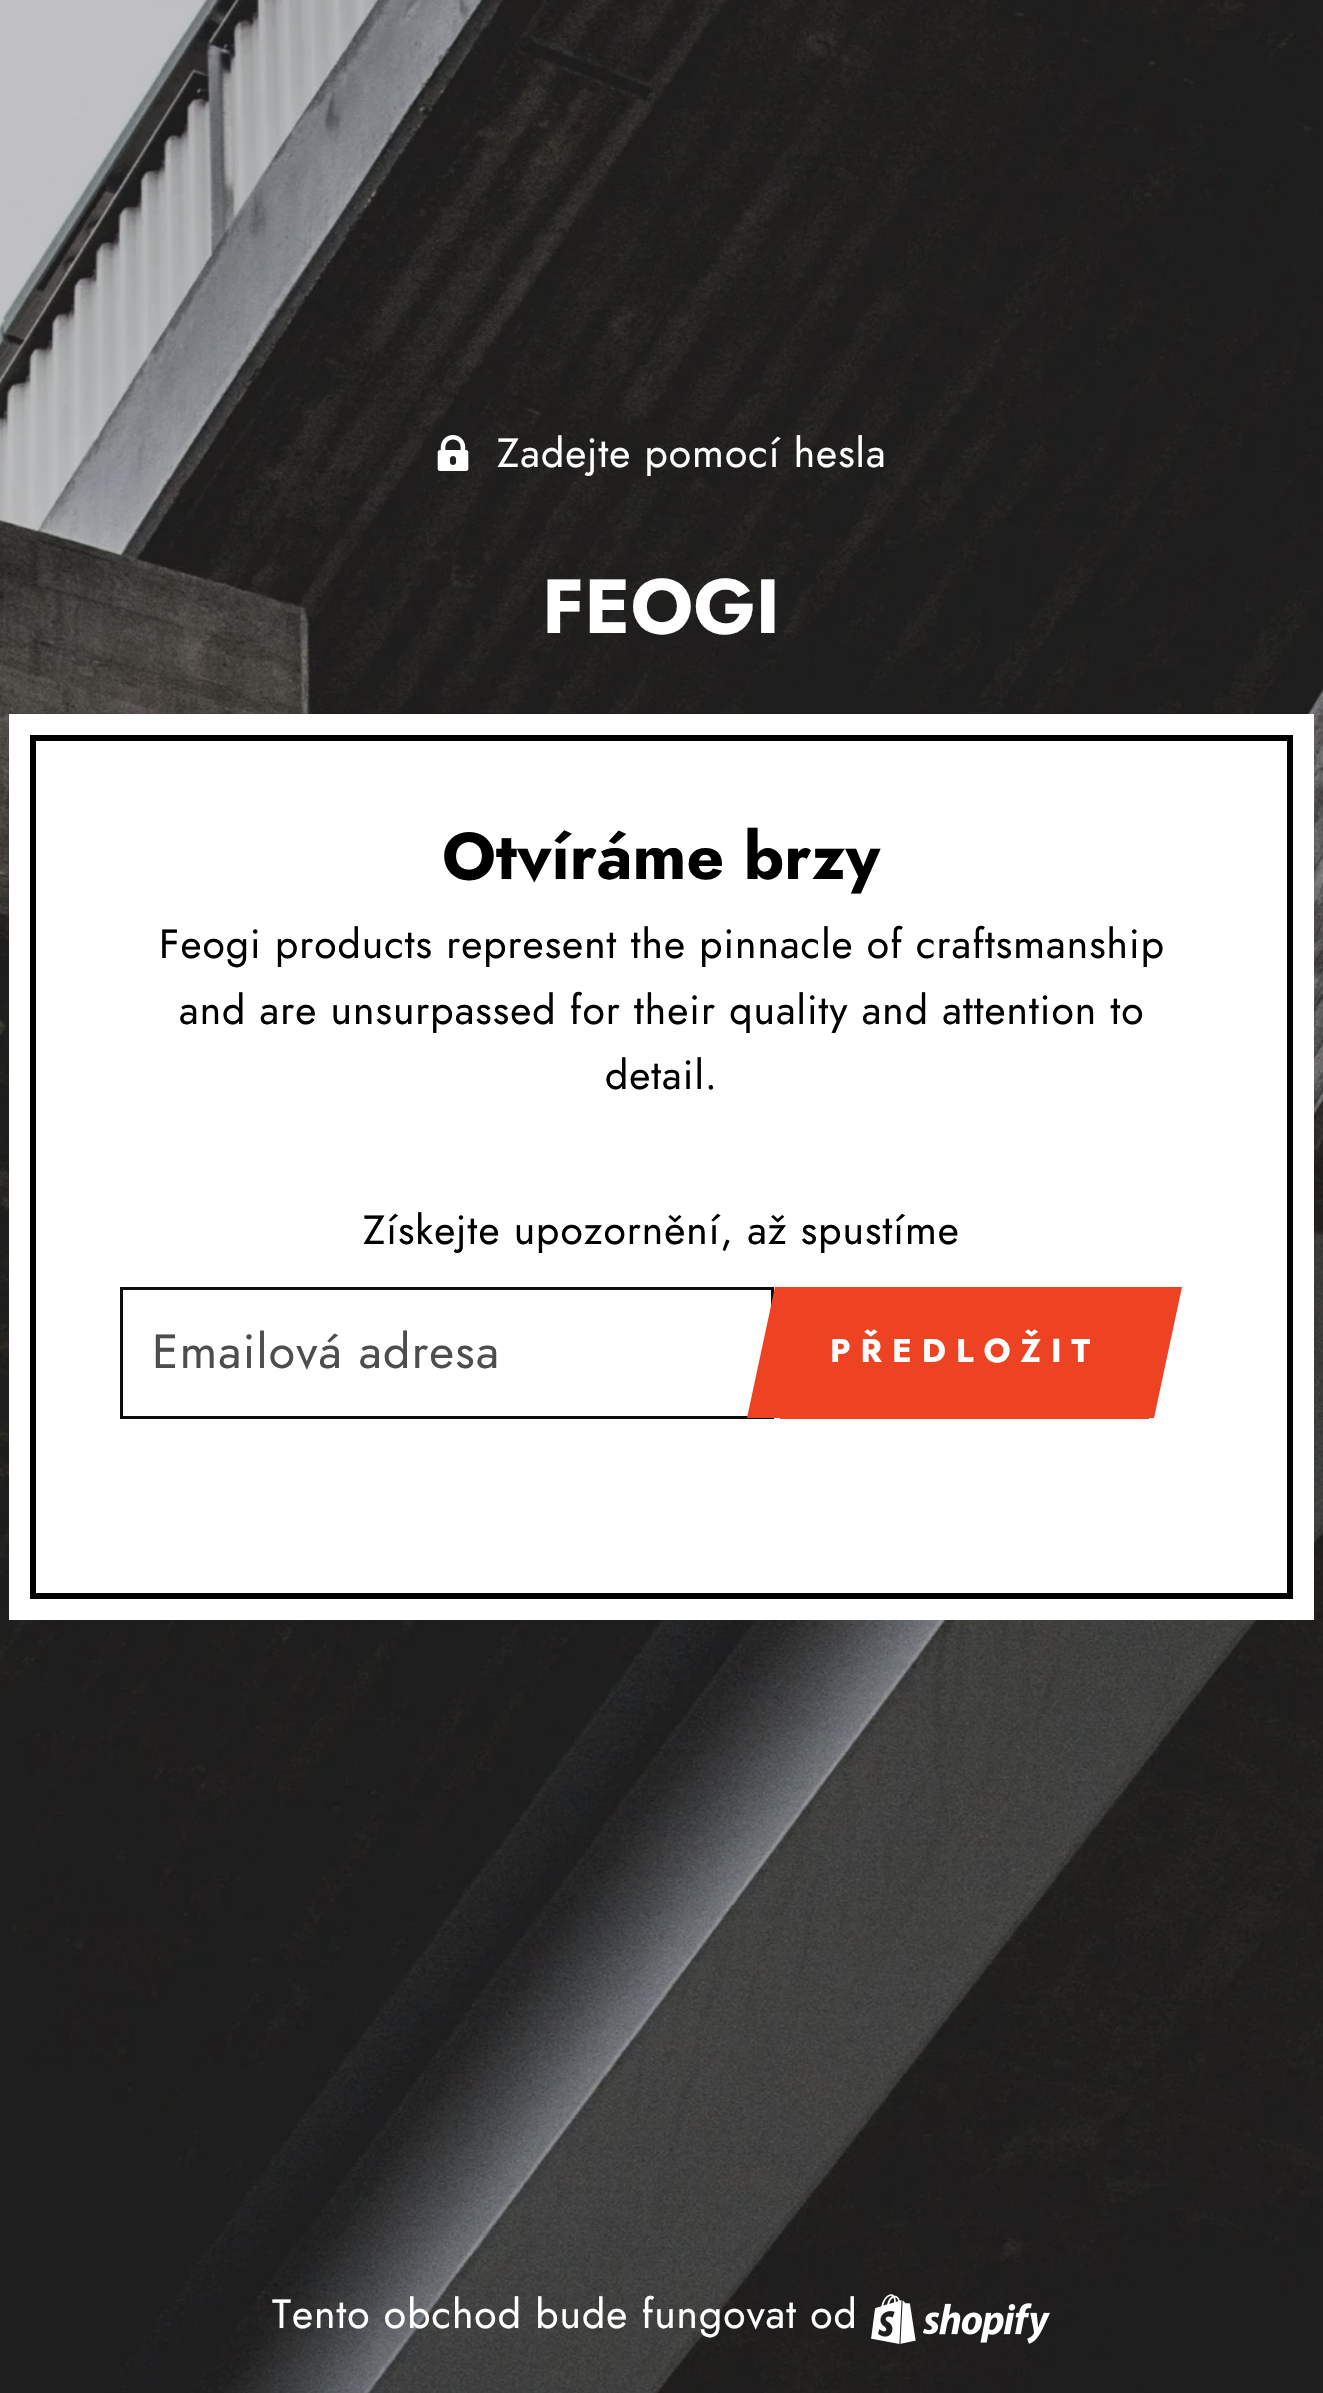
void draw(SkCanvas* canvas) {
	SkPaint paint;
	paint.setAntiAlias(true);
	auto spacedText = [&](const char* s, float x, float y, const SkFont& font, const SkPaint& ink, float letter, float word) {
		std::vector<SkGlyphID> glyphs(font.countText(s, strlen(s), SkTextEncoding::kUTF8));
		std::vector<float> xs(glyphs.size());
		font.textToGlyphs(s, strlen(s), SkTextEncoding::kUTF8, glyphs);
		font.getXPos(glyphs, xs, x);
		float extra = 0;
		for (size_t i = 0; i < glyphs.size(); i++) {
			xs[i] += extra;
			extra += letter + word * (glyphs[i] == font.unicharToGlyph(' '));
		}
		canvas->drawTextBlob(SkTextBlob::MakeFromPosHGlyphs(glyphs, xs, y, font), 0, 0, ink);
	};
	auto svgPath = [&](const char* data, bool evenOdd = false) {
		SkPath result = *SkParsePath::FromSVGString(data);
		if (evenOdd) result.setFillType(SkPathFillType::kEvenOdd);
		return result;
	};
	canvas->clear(0xffffffff);
	canvas->drawImageRect(SkImages::DeferredFromEncodedData(SkData::MakeFromFileName("img1.png")), SkRect::MakeXYWH(0, 0, 1323, 2393), SkSamplingOptions());
	canvas->drawImageRect(SkImages::DeferredFromEncodedData(SkData::MakeFromFileName("img2.png")), SkRect::MakeXYWH(437, 435, 32, 36), SkSamplingOptions());
	SkFont f1(fontMgr->matchFamilyStyle("Jost", SkFontStyle::Normal()), 40.8);
	f1.setSubpixel(true);
	paint.setColor(0xffffffff);
	spacedText("Zadejte pomocí hesla", 497, 467, f1, paint, 1.02, 0);
	SkFont f2(fontMgr->matchFamilyStyle("Jost", SkFontStyle::Bold()), 76.5);
	f2.setSubpixel(true);
	canvas->drawString("FEOGI", 542, 633, f2, paint);
	canvas->drawRect(SkRect::MakeXYWH(9, 714, 1305, 906), paint);
	paint.setStroke(true);
	paint.setStrokeWidth(6);
	paint.setColor(0xff000000);
	canvas->drawRect(SkRect::MakeXYWH(33, 738, 1257, 858), paint);
	SkFont f3(fontMgr->matchFamilyStyle("Jost", SkFontStyle::Bold()), 65.75);
	f3.setSubpixel(true);
	paint.setStroke(false);
	canvas->drawString("Otvíráme brzy", 442, 879, f3, paint);
	spacedText("Feogi products represent the pinnacle of craftsmanship", 159, 958, f1, paint, 1.02, 0);
	spacedText("and are unsurpassed for their quality and attention to", 179, 1024, f1, paint, 1.02, 0);
	spacedText("detail.", 605, 1089, f1, paint, 1.02, 0);
	spacedText("Získejte upozornění, až spustíme", 363, 1244, f1, paint, 1.02, 0);
	paint.setStroke(true);
	paint.setStrokeWidth(3);
	paint.setColor(0xff0e0d0d);
	canvas->drawRect(SkRect::MakeXYWH(121.5, 1288.5, 651, 129), paint);
	SkFont f4(fontMgr->matchFamilyStyle("Jost", SkFontStyle::Normal()), 48);
	f4.setSubpixel(true);
	paint.setStroke(false);
	paint.setColor(0xff4d4d4d);
	spacedText("Emailová adresa", 152, 1368, f4, paint, 1.25, 0);
	paint.setColor(0xffed4322);
	canvas->drawRect(SkRect::MakeXYWH(780, 1287, 369, 132), paint);
	SkFont f5(fontMgr->matchFamilyStyle("Jost", SkFontStyle::Bold()), 33);
	f5.setSubpixel(true);
	paint.setColor(0xffffffff);
	spacedText("PŘEDLOŽIT", 830, 1362, f5, paint, 10, 0);
	paint.setColor(0xffed4322);
	canvas->drawPath(svgPath("M775 1287H835L807 1418H747Z"), paint);
	canvas->drawPath(svgPath("M1122 1287H1182L1154 1418H1094Z"), paint);
	paint.setColor(0xffffffff);
	spacedText("Tento obchod bude fungovat od", 272, 2328, f1, paint, 1.02, 0);
	canvas->drawImageRect(SkImages::DeferredFromEncodedData(SkData::MakeFromFileName("img3.png")), SkRect::MakeXYWH(871, 2294, 179, 50), SkSamplingOptions());
}
